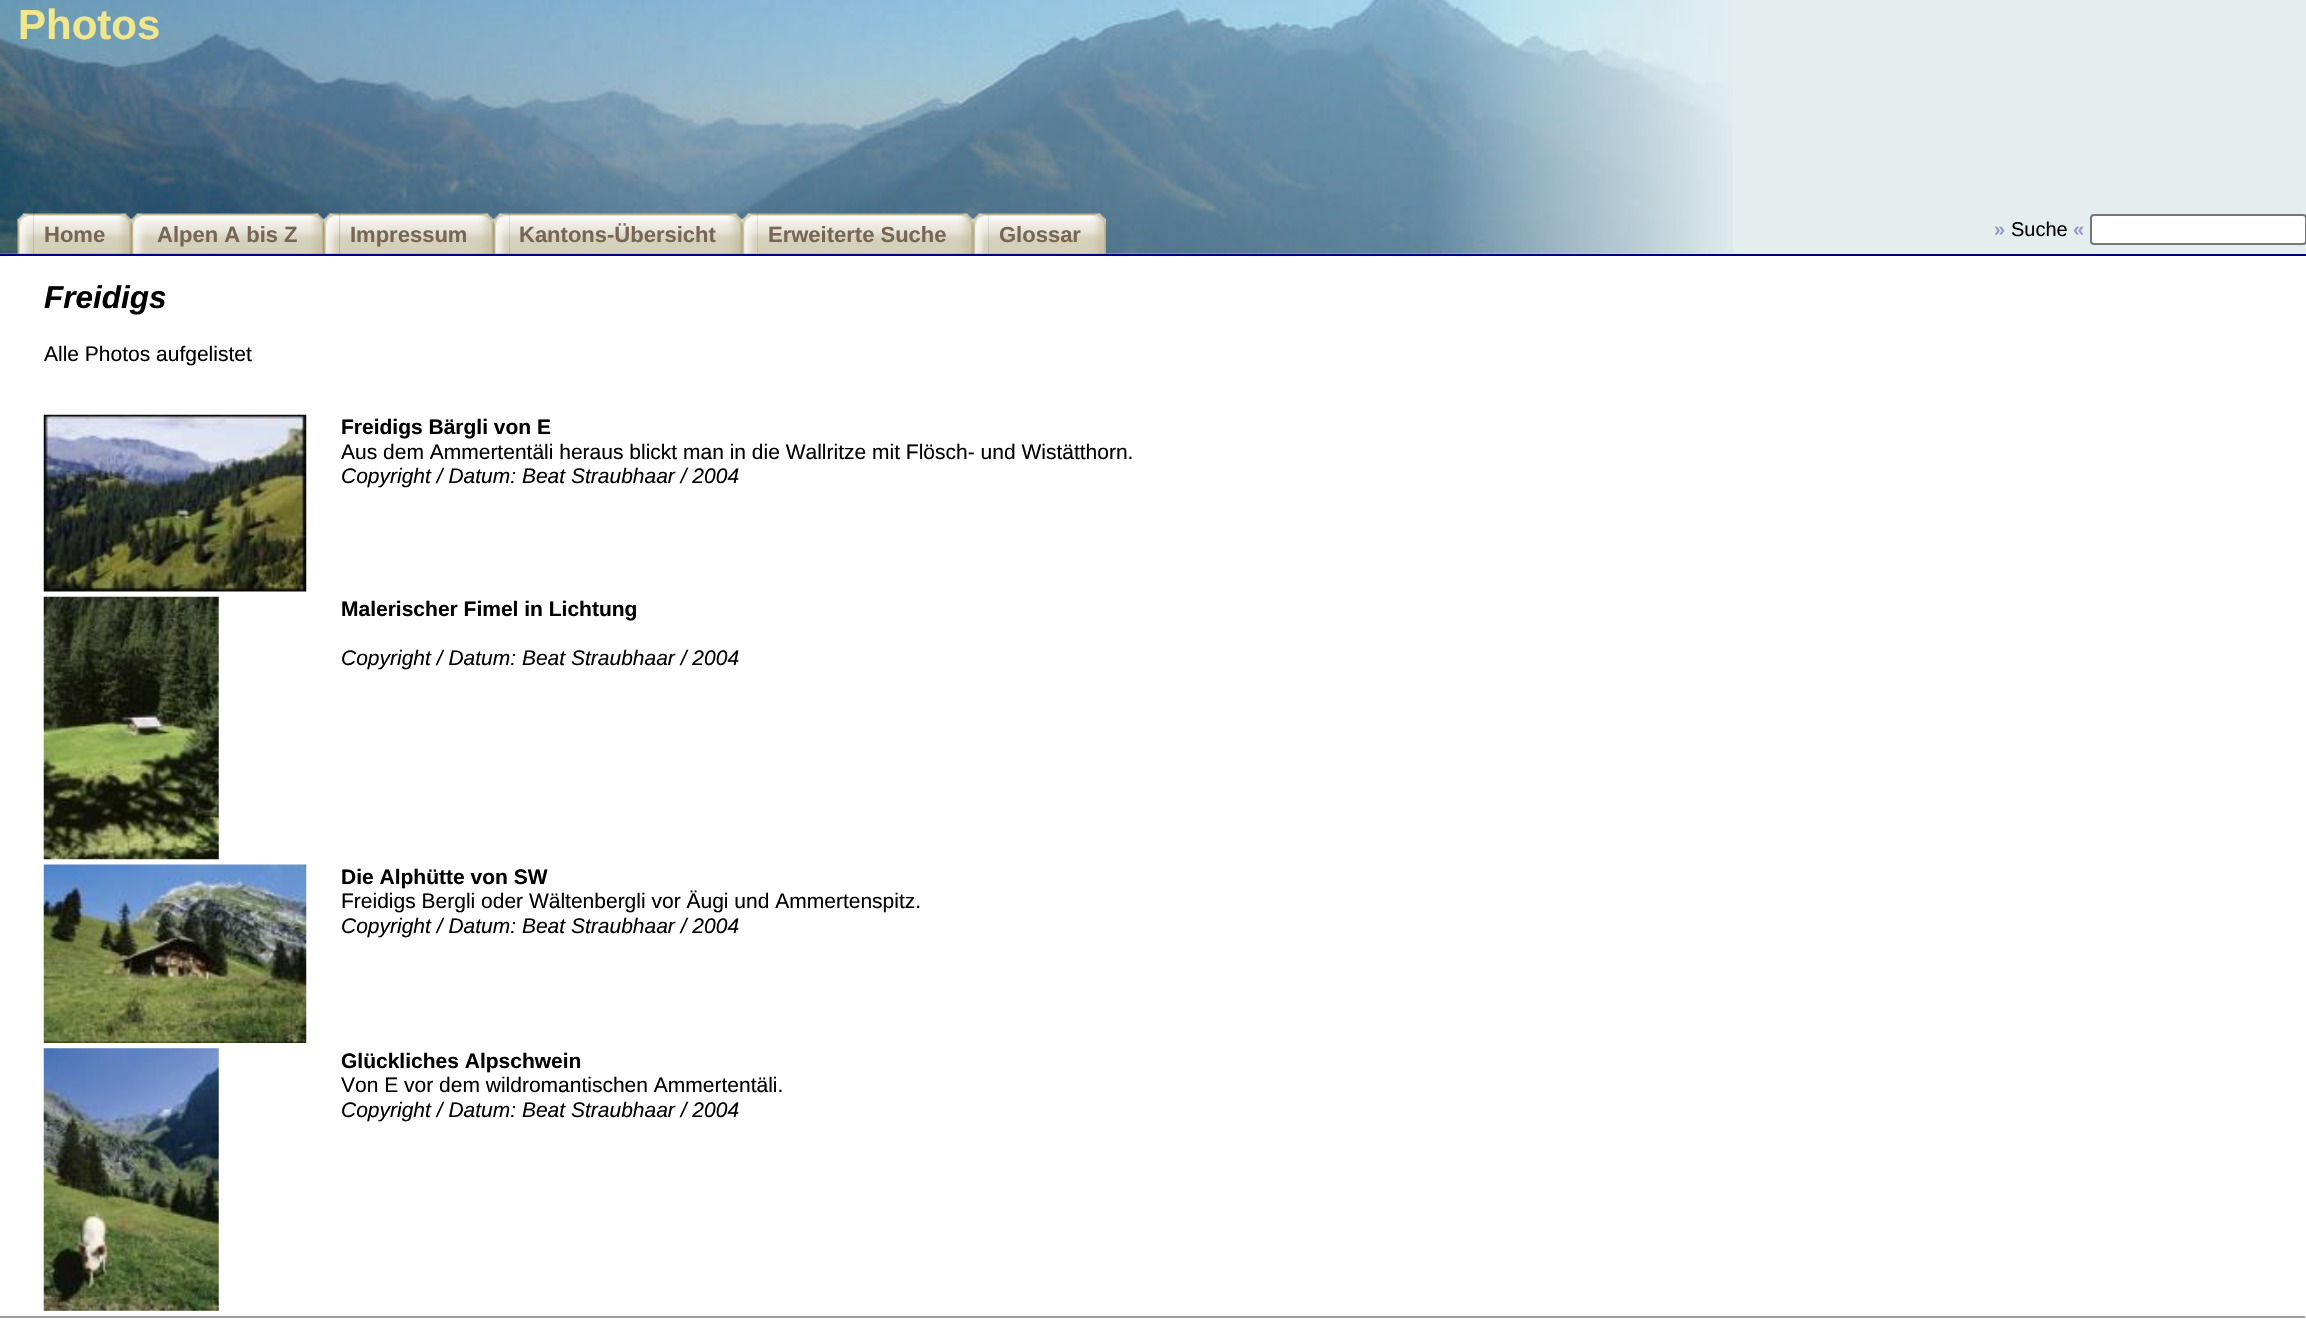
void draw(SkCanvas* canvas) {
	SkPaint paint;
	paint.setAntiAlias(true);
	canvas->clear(0xffffffff);
	paint.setColor(0xffe4eeef);
	canvas->drawRect(SkRect::MakeXYWH(0, 0, 2306, 254), paint);
	canvas->drawImageRect(SkImages::DeferredFromEncodedData(SkData::MakeFromFileName("img1.png")), SkRect::MakeXYWH(0, 0, 1733, 254), SkSamplingOptions());
	paint.setColor(0xff000080);
	canvas->drawRect(SkRect::MakeXYWH(0, 254, 2306, 2), paint);
	SkFont f1(fontMgr->matchFamilyStyle("Liberation Sans", SkFontStyle::Bold()), 42);
	f1.setSubpixel(true);
	paint.setColor(0xfff0e68c);
	canvas->drawString("Photos", 18, 39, f1, paint);
	canvas->drawImageRect(SkImages::DeferredFromEncodedData(SkData::MakeFromFileName("img2.png")), SkRect::MakeXYWH(17, 213, 17, 41), SkSamplingOptions());
	canvas->drawImageRect(SkImages::DeferredFromEncodedData(SkData::MakeFromFileName("img3.png")), SkRect::MakeXYWH(33, 213, 99, 41), SkSamplingOptions());
	SkFont f2(fontMgr->matchFamilyStyle("Liberation Sans", SkFontStyle::Bold()), 22);
	f2.setSubpixel(true);
	paint.setColor(0xff776655);
	canvas->drawString("Home", 44, 242, f2, paint);
	canvas->drawImageRect(SkImages::DeferredFromEncodedData(SkData::MakeFromFileName("img4.png")), SkRect::MakeXYWH(131, 213, 16, 41), SkSamplingOptions());
	canvas->drawImageRect(SkImages::DeferredFromEncodedData(SkData::MakeFromFileName("img5.png")), SkRect::MakeXYWH(147, 213, 177, 41), SkSamplingOptions());
	canvas->drawString("Alpen A bis Z", 157, 242, f2, paint);
	canvas->drawImageRect(SkImages::DeferredFromEncodedData(SkData::MakeFromFileName("img6.png")), SkRect::MakeXYWH(323, 213, 17, 41), SkSamplingOptions());
	canvas->drawImageRect(SkImages::DeferredFromEncodedData(SkData::MakeFromFileName("img7.png")), SkRect::MakeXYWH(339, 213, 155, 41), SkSamplingOptions());
	canvas->drawString("Impressum", 350, 242, f2, paint);
	canvas->drawImageRect(SkImages::DeferredFromEncodedData(SkData::MakeFromFileName("img8.png")), SkRect::MakeXYWH(493, 213, 17, 41), SkSamplingOptions());
	canvas->drawImageRect(SkImages::DeferredFromEncodedData(SkData::MakeFromFileName("img9.png")), SkRect::MakeXYWH(509, 213, 233, 41), SkSamplingOptions());
	canvas->drawString("Kantons-Übersicht", 519, 242, f2, paint);
	canvas->drawImageRect(SkImages::DeferredFromEncodedData(SkData::MakeFromFileName("img10.png")), SkRect::MakeXYWH(742, 213, 16, 41), SkSamplingOptions());
	canvas->drawImageRect(SkImages::DeferredFromEncodedData(SkData::MakeFromFileName("img11.png")), SkRect::MakeXYWH(757, 213, 216, 41), SkSamplingOptions());
	canvas->drawString("Erweiterte Suche", 768, 242, f2, paint);
	canvas->drawImageRect(SkImages::DeferredFromEncodedData(SkData::MakeFromFileName("img12.png")), SkRect::MakeXYWH(973, 213, 16, 41), SkSamplingOptions());
	canvas->drawImageRect(SkImages::DeferredFromEncodedData(SkData::MakeFromFileName("img13.png")), SkRect::MakeXYWH(988, 213, 118, 41), SkSamplingOptions());
	canvas->drawString("Glossar", 999, 242, f2, paint);
	SkFont f3(fontMgr->matchFamilyStyle("Liberation Sans", SkFontStyle::Bold()), 20);
	f3.setSubpixel(true);
	paint.setColor(0xff9999cc);
	canvas->drawString("»", 1994, 236, f3, paint);
	SkFont f4(fontMgr->matchFamilyStyle("Liberation Sans", SkFontStyle::Normal()), 20);
	f4.setSubpixel(true);
	paint.setColor(0xff000000);
	canvas->drawString("Suche", 2011, 236, f4, paint);
	paint.setColor(0xff9999cc);
	canvas->drawString("«", 2073, 236, f3, paint);
	paint.setColor(0xffffffff);
	canvas->drawRoundRect(SkRect::MakeXYWH(2091, 215, 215, 29), 3, 3, paint);
	paint.setStroke(true);
	paint.setStrokeWidth(2);
	paint.setColor(0xff767676);
	canvas->drawRoundRect(SkRect::MakeXYWH(2091, 215, 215, 29), 3, 3, paint);
	SkFont f5(fontMgr->matchFamilyStyle("Liberation Sans", SkFontStyle::BoldItalic()), 31.5);
	f5.setSubpixel(true);
	paint.setStroke(false);
	paint.setColor(0xff000000);
	canvas->drawString("Freidigs", 44, 308, f5, paint);
	SkFont f6(fontMgr->matchFamilyStyle("Liberation Sans", SkFontStyle::Normal()), 21);
	f6.setSubpixel(true);
	canvas->drawString("Alle Photos aufgelistet", 44, 361, f6, paint);
	canvas->drawImageRect(SkImages::DeferredFromEncodedData(SkData::MakeFromFileName("img14.png")), SkRect::MakeXYWH(43, 414, 264, 178), SkSamplingOptions());
	SkFont f7(fontMgr->matchFamilyStyle("Liberation Sans", SkFontStyle::Bold()), 21);
	f7.setSubpixel(true);
	canvas->drawString("Freidigs Bärgli von E", 341, 434, f7, paint);
	canvas->drawString("Aus dem Ammertentäli heraus blickt man in die Wallritze mit Flösch- und Wistätthorn.", 341, 459, f6, paint);
	SkFont f8(fontMgr->matchFamilyStyle("Liberation Sans", SkFontStyle::Italic()), 21);
	f8.setSubpixel(true);
	canvas->drawString("Copyright / Datum: Beat Straubhaar / 2004", 341, 483, f8, paint);
	canvas->drawImageRect(SkImages::DeferredFromEncodedData(SkData::MakeFromFileName("img15.png")), SkRect::MakeXYWH(43, 596, 176, 264), SkSamplingOptions());
	canvas->drawString("Malerischer Fimel in Lichtung", 341, 616, f7, paint);
	canvas->drawString("Copyright / Datum: Beat Straubhaar / 2004", 341, 665, f8, paint);
	canvas->drawImageRect(SkImages::DeferredFromEncodedData(SkData::MakeFromFileName("img16.png")), SkRect::MakeXYWH(43, 864, 264, 179), SkSamplingOptions());
	canvas->drawString("Die Alphütte von SW", 341, 884, f7, paint);
	canvas->drawString("Freidigs Bergli oder Wältenbergli vor Äugi und Ammertenspitz.", 341, 908, f6, paint);
	canvas->drawString("Copyright / Datum: Beat Straubhaar / 2004", 341, 933, f8, paint);
	canvas->drawImageRect(SkImages::DeferredFromEncodedData(SkData::MakeFromFileName("img17.png")), SkRect::MakeXYWH(43, 1048, 176, 263), SkSamplingOptions());
	canvas->drawString("Glückliches Alpschwein", 341, 1068, f7, paint);
	canvas->drawString("Von E vor dem wildromantischen Ammertentäli.", 341, 1092, f6, paint);
	canvas->drawString("Copyright / Datum: Beat Straubhaar / 2004", 341, 1117, f8, paint);
	paint.setColor(0xff9f9f9f);
	canvas->drawRect(SkRect::MakeXYWH(0, 1316, 2306, 2), paint);
	paint.setColor(0xffeeeeee);
	canvas->drawRect(SkRect::MakeXYWH(2305, 1316, 1, 2), paint);
}
